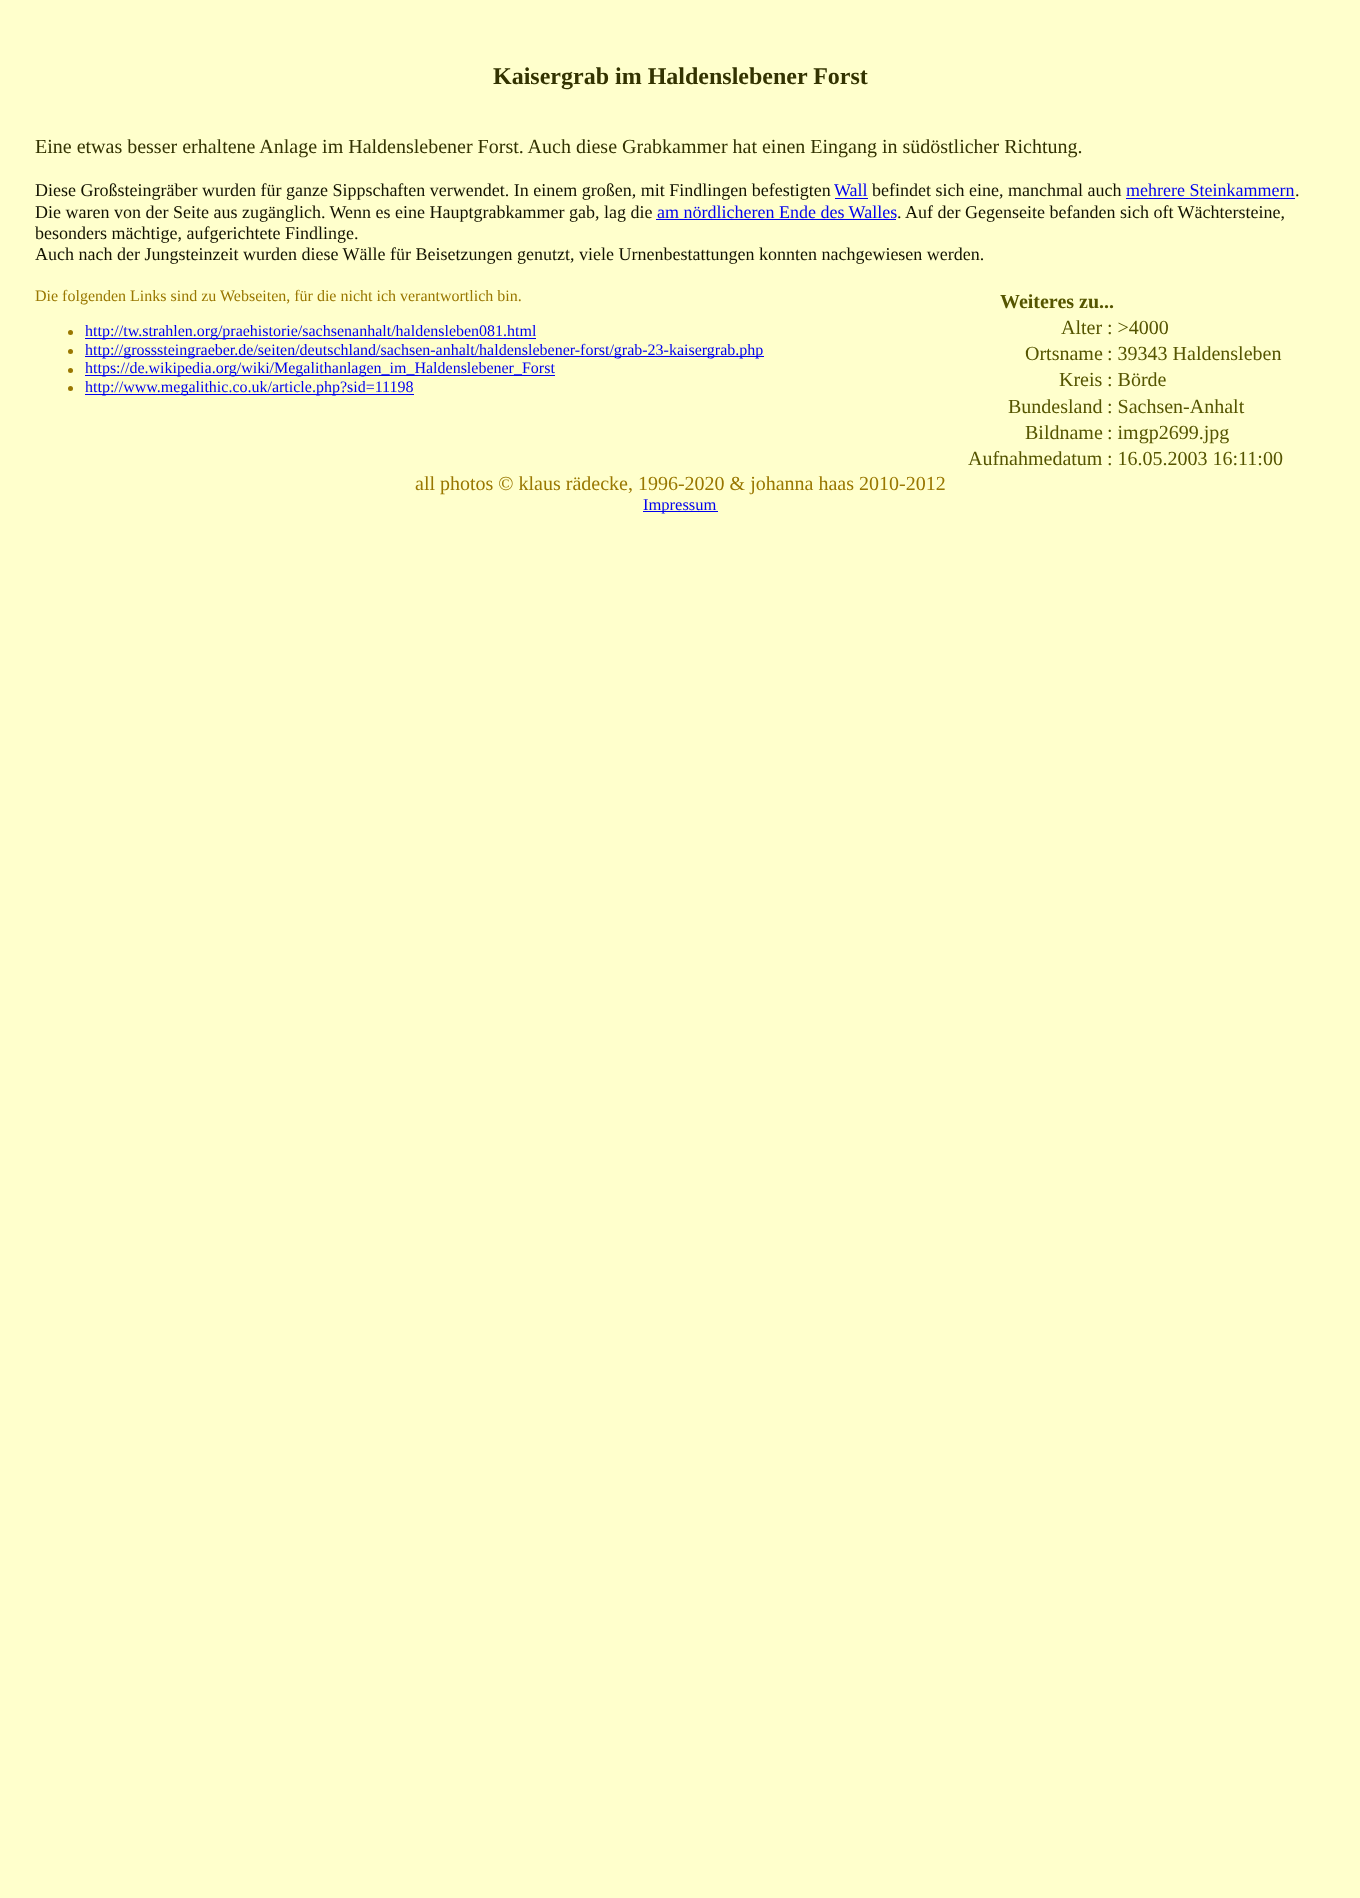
<!DOCTYPE html>
<meta charset="utf-8">
<style>body { margin: 0 } canvas { display: block }</style>
<canvas id="canvas" width="1360" height="1898"></canvas>
<script>
window.onload = function () {
    const canvas = document.getElementById('canvas');
    const context = canvas.getContext('2d');
    context.miterLimit = 4;
    context.fontKerning = 'normal';

    context.fillStyle = 'rgb(255, 255, 204)';
    context.fillRect(0, 0, 1360, 1898);
    context.fillStyle = 'rgb(0, 0, 238)';
    context.fillRect(835, 198, 33, 1);
    context.fillRect(1126, 198, 169, 1);
    context.fillRect(656, 219, 240, 1);
    context.fillStyle = 'rgb(153, 119, 0)';
    context.beginPath();
    context.arc(70.5, 332.5, 2.5, 0, 2 * Math.PI);
    context.fill();
    context.fillStyle = 'rgb(0, 0, 238)';
    context.fillRect(85, 338, 451, 1);
    context.fillStyle = 'rgb(153, 119, 0)';
    context.beginPath();
    context.arc(70.5, 351.5, 2.5, 0, 2 * Math.PI);
    context.fill();
    context.fillStyle = 'rgb(0, 0, 238)';
    context.fillRect(85, 356, 679, 1);
    context.fillStyle = 'rgb(153, 119, 0)';
    context.beginPath();
    context.arc(70.5, 370.5, 2.5, 0, 2 * Math.PI);
    context.fill();
    context.fillStyle = 'rgb(0, 0, 238)';
    context.fillRect(85, 375, 470, 1);
    context.fillStyle = 'rgb(153, 119, 0)';
    context.beginPath();
    context.arc(70.5, 388.5, 2.5, 0, 2 * Math.PI);
    context.fill();
    context.fillStyle = 'rgb(0, 0, 238)';
    context.fillRect(85, 394, 329, 1);
    context.fillRect(643, 511, 75, 1);
    context.font = 'bold 24px Liberation Serif';
    context.fillStyle = 'rgb(51, 51, 0)';
    context.fillText('Kaisergrab im Haldenslebener Forst', 493, 84);
    context.font = '20px Liberation Serif';
    context.fillText('Eine etwas besser erhaltene Anlage im Haldenslebener Forst. Auch diese Grabkammer hat einen Eingang in südöstlicher Richtung.', 35, 153);
    context.font = '18px Liberation Serif';
    context.fillStyle = 'rgb(18, 18, 0)';
    context.fillText('Diese Großsteingräber wurden für ganze Sippschaften verwendet. In einem großen, mit Findlingen befestigten', 35, 196);
    context.fillStyle = 'rgb(0, 0, 238)';
    context.fillText('Wall', 834, 196);
    context.fillStyle = 'rgb(18, 18, 0)';
    context.fillText('befindet sich eine, manchmal auch', 872, 196);
    context.fillStyle = 'rgb(0, 0, 238)';
    context.fillText('mehrere Steinkammern', 1126, 196);
    context.fillStyle = 'rgb(18, 18, 0)';
    context.fillText('.', 1295, 196);
    context.fillText('Die waren von der Seite aus zugänglich. Wenn es eine Hauptgrabkammer gab, lag die', 35, 218);
    context.fillStyle = 'rgb(0, 0, 238)';
    context.fillText('am nördlicheren Ende des Walles', 657, 218);
    context.fillStyle = 'rgb(18, 18, 0)';
    context.fillText('. Auf der Gegenseite befanden sich oft Wächtersteine,', 897, 218);
    context.fillText('besonders mächtige, aufgerichtete Findlinge.', 35, 239);
    context.fillText('Auch nach der Jungsteinzeit wurden diese Wälle für Beisetzungen genutzt, viele Urnenbestattungen konnten nachgewiesen werden.', 35, 260);
    context.font = '16px Liberation Serif';
    context.fillStyle = 'rgb(153, 119, 0)';
    context.fillText('Die folgenden Links sind zu Webseiten, für die nicht ich verantwortlich bin.', 35, 301);
    context.fillStyle = 'rgb(0, 0, 238)';
    context.fillText('http://tw.strahlen.org/praehistorie/sachsenanhalt/haldensleben081.html', 85, 336);
    context.fillText('http://grosssteingraeber.de/seiten/deutschland/sachsen-anhalt/haldenslebener-forst/grab-23-kaisergrab.php', 85, 355);
    context.fillText('https://de.wikipedia.org/wiki/Megalithanlagen_im_Haldenslebener_Forst', 85, 373);
    context.fillText('http://www.megalithic.co.uk/article.php?sid=11198', 85, 392);
    context.font = 'bold 20px Liberation Serif';
    context.fillStyle = 'rgb(85, 85, 0)';
    context.fillText('Weiteres zu...', 1000, 308);
    context.font = '20px Liberation Serif';
    context.fillText('Alter', 1061, 334);
    context.fillText(': >4000', 1107, 334);
    context.fillText('Ortsname', 1025, 360);
    context.fillText(': 39343 Haldensleben', 1107, 360);
    context.fillText('Kreis', 1059, 386);
    context.fillText(': Börde', 1107, 386);
    context.fillText('Bundesland', 1008, 413);
    context.fillText(': Sachsen-Anhalt', 1107, 413);
    context.fillText('Bildname', 1025, 439);
    context.fillText(': imgp2699.jpg', 1107, 439);
    context.fillText('Aufnahmedatum', 968, 465);
    context.fillText(': 16.05.2003 16:11:00', 1107, 465);
    context.fillStyle = 'rgb(153, 119, 0)';
    context.fillText('all photos © klaus rädecke, 1996-2020 & johanna haas 2010-2012', 415, 490);
    context.font = '16.5px Liberation Serif';
    context.fillStyle = 'rgb(0, 0, 238)';
    context.fillText('Impressum', 643, 510);
};
</script>
